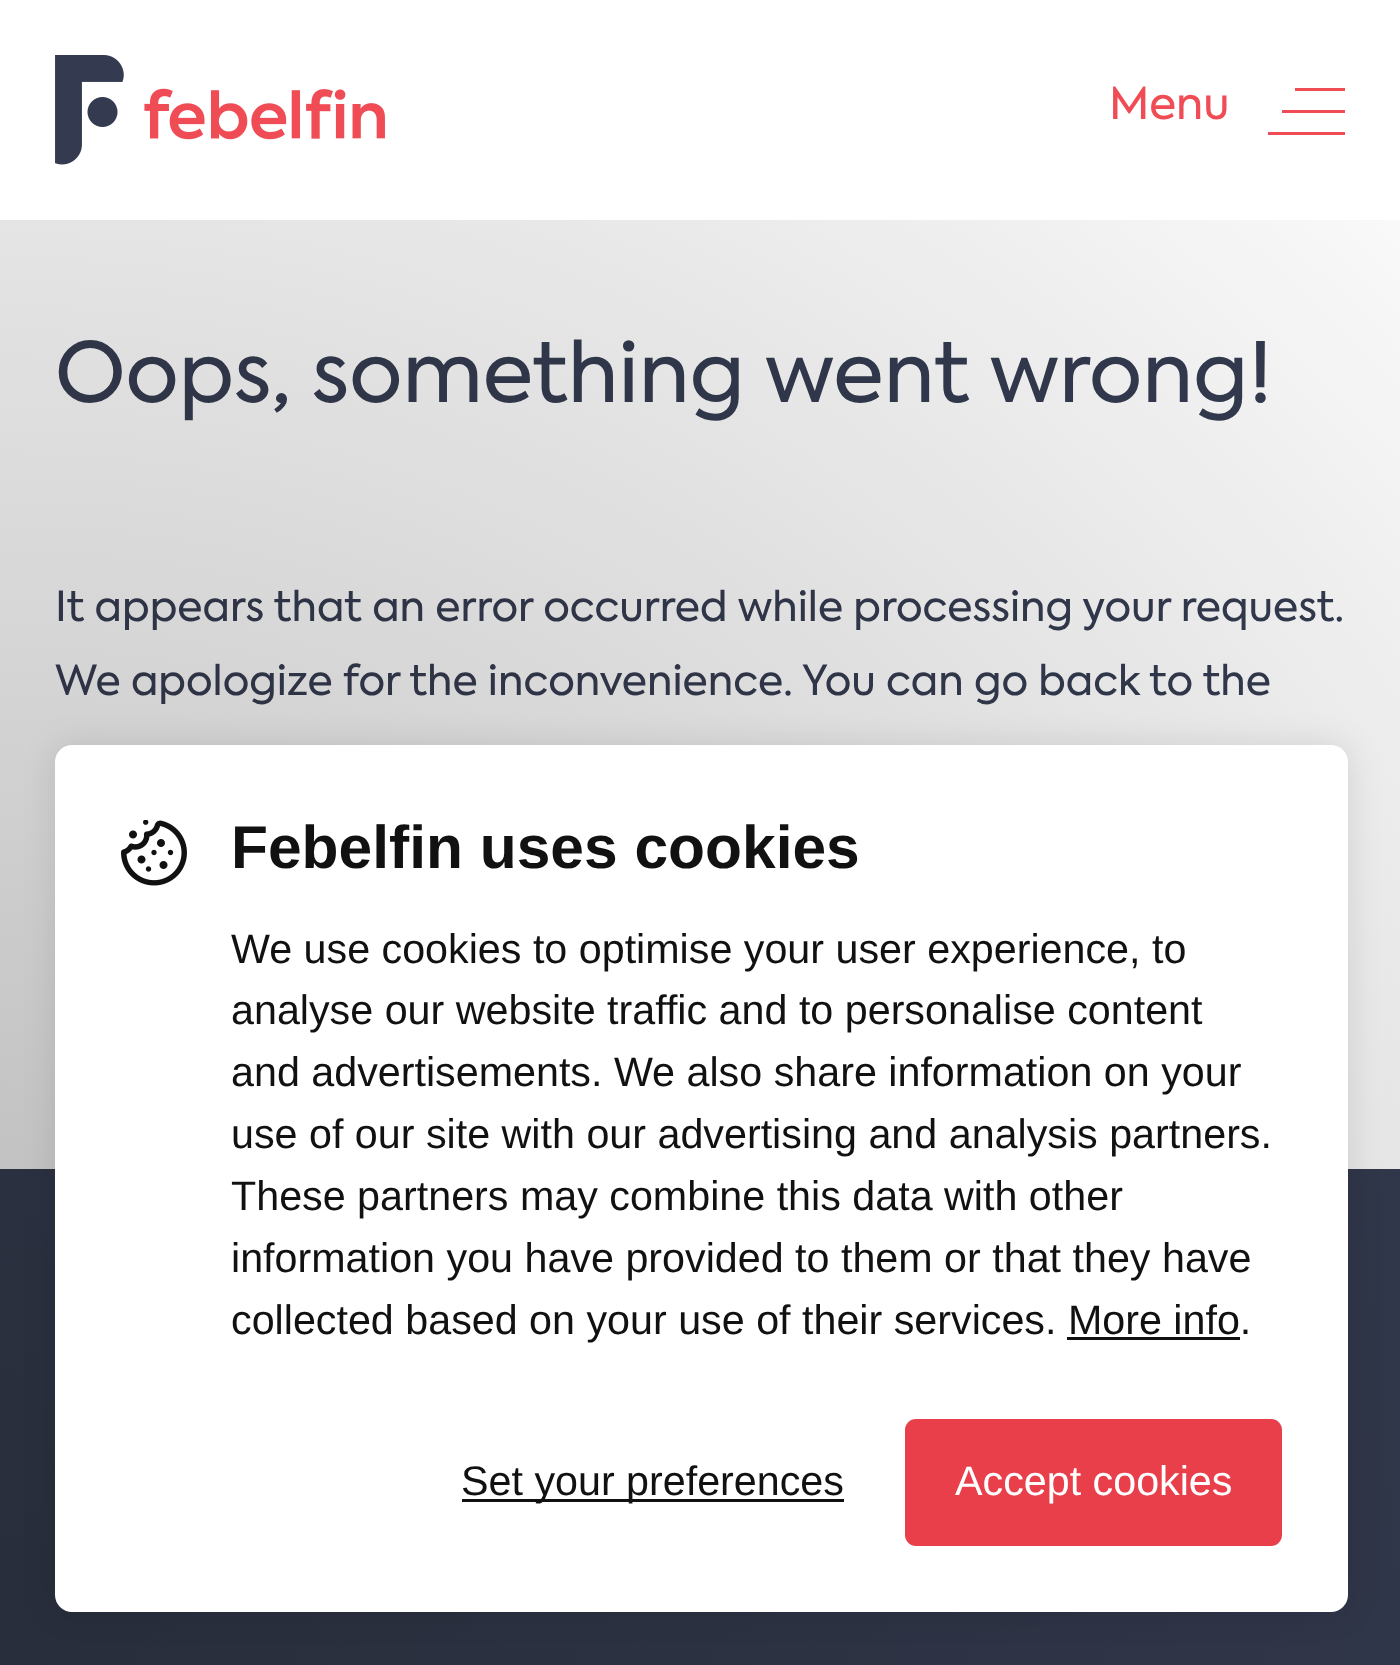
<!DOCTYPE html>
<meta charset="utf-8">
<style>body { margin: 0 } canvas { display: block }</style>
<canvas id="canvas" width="1400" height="1665"></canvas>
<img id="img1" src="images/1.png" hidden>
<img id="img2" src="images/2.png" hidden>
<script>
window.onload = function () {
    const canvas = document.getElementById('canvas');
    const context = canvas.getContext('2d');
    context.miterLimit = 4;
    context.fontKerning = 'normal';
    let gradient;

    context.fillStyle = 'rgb(255, 255, 255)';
    context.fillRect(0, 0, 1400, 1665);
    context.drawImage(document.getElementById('img1'), 55, 55, 330, 110);
    context.fillStyle = 'rgb(240, 76, 85)';
    context.fillRect(1282, 110, 63, 3);
    context.fillRect(1295, 88, 50, 3);
    context.fillRect(1268, 132, 77, 3);
    context.fillStyle = 'rgb(52, 59, 80)';
    context.fillRect(0, 1169, 1400, 496);
    context.font = '44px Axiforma';
    context.fillStyle = 'rgb(240, 76, 85)';
    context.fillText('Menu', 1109, 119);
    context.font = '82.5px Axiforma';
    context.fillStyle = 'rgb(52, 59, 80)';
    context.fillText('Oops, something went wrong!', 55, 402);
    context.font = '41.25px Axiforma';
    context.fillText('It appears that an error occurred while processing your request.', 55, 621);
    context.fillText('We apologize for the inconvenience. You can go back to the', 55, 695);
    gradient = context.createRadialGradient(0, 1667, 0, 0, 1667, 2178);
    gradient.addColorStop(0, 'rgba(17, 17, 17, 0.33)');
    gradient.addColorStop(1, 'rgba(17, 17, 17, 0)');
    context.fillStyle = gradient;
    context.fillRect(0, 220, 1400, 1445);
    context.fillStyle = 'rgba(0, 0, 0, 0.1)';
    context.filter = 'blur(16.5px)';
    context.beginPath();
    context.roundRect(55, 745, 1293, 867, 17);
    context.fill();
    context.filter = 'none';
    context.fillStyle = 'rgb(255, 255, 255)';
    context.beginPath();
    context.roundRect(55, 745, 1293, 867, 17);
    context.fill();
    context.drawImage(document.getElementById('img2'), 121, 820, 66, 66);
    context.font = 'bold 60.5px Liberation Sans';
    context.fillStyle = 'rgb(17, 17, 17)';
    context.fillText('Febelfin uses cookies', 231, 868);
    context.font = '41.25px Liberation Sans';
    context.fillText('We use cookies to optimise your user experience, to', 231, 963);
    context.fillText('analyse our website traffic and to personalise content', 231, 1024);
    context.fillText('and advertisements. We also share information on your', 231, 1086);
    context.fillText('use of our site with our advertising and analysis partners.', 231, 1148);
    context.fillText('These partners may combine this data with other', 231, 1210);
    context.fillText('information you have provided to them or that they have', 231, 1272);
    context.fillText('collected based on your use of their services. More info.', 231, 1334);
    context.fillRect(1067, 1337, 173, 3);
    context.fillRect(462, 1499, 382, 3);
    context.fillText('Set your preferences', 461, 1495);
    context.fillStyle = 'rgb(232, 63, 75)';
    context.beginPath();
    context.roundRect(905, 1419, 377, 127, 11);
    context.fill();
    context.fillStyle = 'rgb(255, 255, 255)';
    context.fillText('Accept cookies', 955, 1495);
};
</script>
